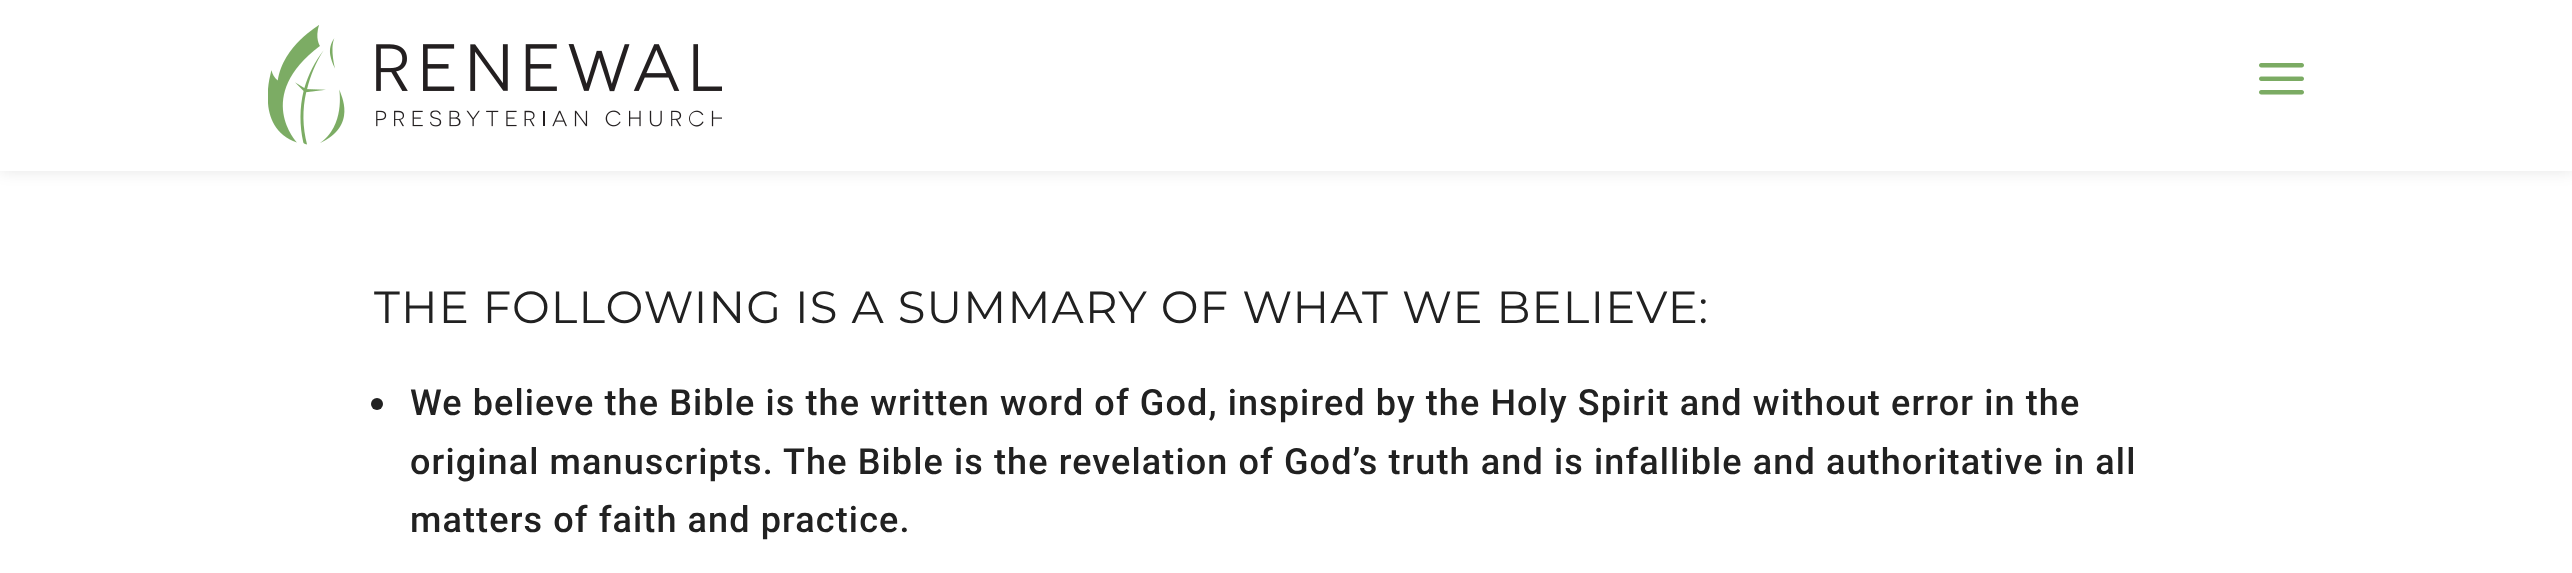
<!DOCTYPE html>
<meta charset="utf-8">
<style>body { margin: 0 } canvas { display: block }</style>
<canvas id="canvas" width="2572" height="573"></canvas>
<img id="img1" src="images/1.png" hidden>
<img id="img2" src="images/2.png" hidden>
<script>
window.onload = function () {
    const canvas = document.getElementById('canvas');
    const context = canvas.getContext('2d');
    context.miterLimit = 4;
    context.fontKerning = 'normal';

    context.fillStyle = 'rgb(255, 255, 255)';
    context.fillRect(0, 0, 2572, 573);
    context.fillStyle = 'rgba(0, 0, 0, 0.1)';
    context.filter = 'blur(8px)';
    context.beginPath();
    context.rect(0, 0, 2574, 171);
    context.fill();
    context.filter = 'none';
    context.fillStyle = 'rgb(255, 255, 255)';
    context.fillRect(0, 0, 2572, 171);
    context.drawImage(document.getElementById('img1'), 268, 25, 454, 120);
    context.drawImage(document.getElementById('img2'), 2259, 63, 45, 32);
    context.fillStyle = 'rgb(33, 33, 33)';
    context.beginPath();
    context.arc(377, 404, 6, 0, 2 * Math.PI);
    context.fill();
    context.letterSpacing = '1.12px';
    context.font = '100 45px Montserrat';
    context.fillText('THE FOLLOWING IS A SUMMARY OF WHAT WE BELIEVE:', 374, 323);
    context.font = '500 36px Roboto';
    context.fillText('We believe the Bible is the written word of God, inspired by the Holy Spirit and without error in the', 410, 415);
    context.fillText('original manuscripts. The Bible is the revelation of God’s truth and is infallible and authoritative in all', 410, 474);
    context.fillText('matters of faith and practice.', 410, 532);
};
</script>
